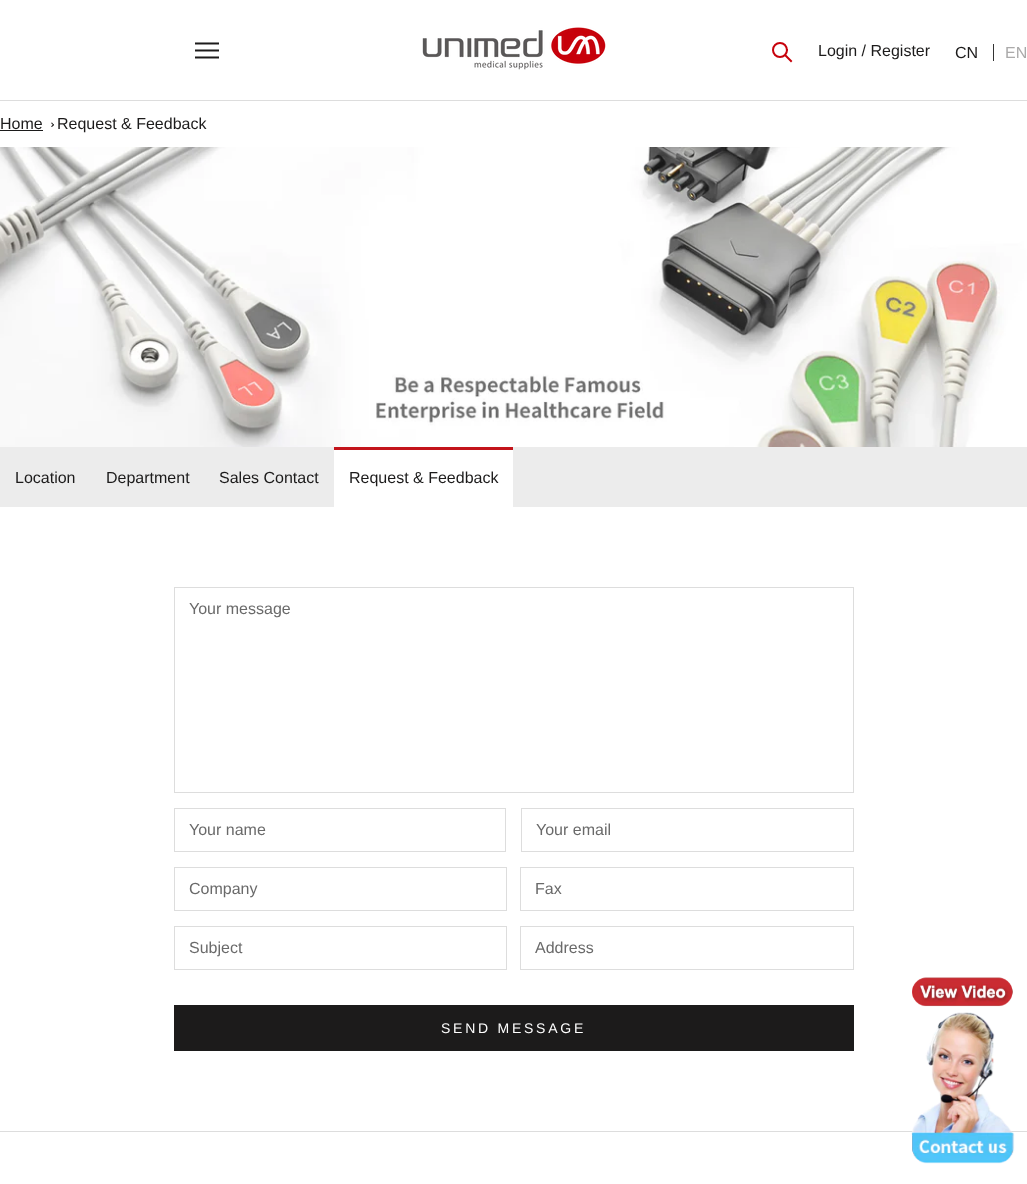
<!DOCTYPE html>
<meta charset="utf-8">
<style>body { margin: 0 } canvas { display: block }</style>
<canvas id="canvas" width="1027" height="1184"></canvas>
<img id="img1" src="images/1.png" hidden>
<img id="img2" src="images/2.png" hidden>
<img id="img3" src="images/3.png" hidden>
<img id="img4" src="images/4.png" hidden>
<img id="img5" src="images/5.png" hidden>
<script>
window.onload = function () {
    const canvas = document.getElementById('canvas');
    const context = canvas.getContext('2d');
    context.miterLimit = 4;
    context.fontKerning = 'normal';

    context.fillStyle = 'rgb(255, 255, 255)';
    context.fillRect(0, 0, 1027, 1184);
    context.fillStyle = 'rgb(221, 221, 221)';
    context.fillRect(0, 100, 1027, 1);
    context.drawImage(document.getElementById('img1'), 195, 42, 24, 17);
    context.drawImage(document.getElementById('img2'), 422, 27, 184, 43);
    context.beginPath();
    context.moveTo(791, 61);
    context.lineTo(785.5, 55.5);
    context.strokeStyle = 'rgb(199, 2, 11)';
    context.lineWidth = 2;
    context.lineCap = 'square';
    context.stroke();
    context.beginPath();
    context.arc(780, 50, 7, 0, 2 * Math.PI);
    context.stroke();
    context.fillStyle = 'rgb(51, 51, 51)';
    context.fillRect(993, 44, 1, 17);
    context.fillStyle = 'rgb(28, 27, 27)';
    context.fillRect(0, 130, 43, 1);
    context.beginPath();
    context.moveTo(52, 122.5);
    context.lineTo(54, 125);
    context.lineTo(53.5, 125.5);
    context.lineTo(51, 123);
    context.closePath();
    context.fill();
    context.beginPath();
    context.moveTo(53.5, 124);
    context.lineTo(54, 125);
    context.lineTo(52, 127);
    context.lineTo(51, 126.5);
    context.closePath();
    context.fill();
    context.drawImage(document.getElementById('img3'), 0, 147, 1027, 300);
    context.fillStyle = 'rgb(236, 236, 236)';
    context.fillRect(0, 447, 1027, 60);
    context.fillStyle = 'rgb(255, 255, 255)';
    context.fillRect(334, 450, 179, 57);
    context.fillStyle = 'rgb(195, 20, 27)';
    context.fillRect(334, 447, 179, 3);
    context.strokeStyle = 'rgb(221, 221, 221)';
    context.lineWidth = 1;
    context.strokeRect(174.5, 587.5, 679, 205);
    context.strokeRect(174.5, 808.5, 331, 43);
    context.strokeRect(521.5, 808.5, 332, 43);
    context.strokeRect(174.5, 867.5, 332, 43);
    context.strokeRect(520.5, 867.5, 333, 43);
    context.strokeRect(174.5, 926.5, 332, 43);
    context.strokeRect(520.5, 926.5, 333, 43);
    context.strokeStyle = 'rgb(28, 27, 27)';
    context.strokeRect(174.5, 1005.5, 679, 45);
    context.fillStyle = 'rgb(28, 27, 27)';
    context.fillRect(175, 1006, 678, 44);
    context.drawImage(document.getElementById('img4'), 912, 977, 101, 30);
    context.fillStyle = 'rgb(221, 221, 221)';
    context.fillRect(0, 1131, 1027, 1);
    context.drawImage(document.getElementById('img5'), 911, 1012, 104, 152);
    context.font = '16px Liberation Sans';
    context.fillStyle = 'rgb(28, 27, 27)';
    context.fillText('Login / Register', 818, 56);
    context.fillText('CN', 955, 58);
    context.fillStyle = 'rgb(171, 170, 170)';
    context.fillText('EN', 1005, 58);
    context.fillStyle = 'rgb(28, 27, 27)';
    context.fillText('Home', 0, 129);
    context.fillText('Request & Feedback', 57, 129);
    context.fillText('Location', 15, 483);
    context.fillText('Department', 106, 483);
    context.fillText('Sales Contact', 219, 483);
    context.fillText('Request & Feedback', 349, 483);
    context.fillStyle = 'rgb(106, 106, 106)';
    context.fillText('Your message', 189, 614);
    context.fillText('Your name', 189, 835);
    context.fillText('Your email', 536, 835);
    context.fillText('Company', 189, 894);
    context.fillText('Fax', 535, 894);
    context.fillText('Subject', 189, 953);
    context.fillText('Address', 535, 953);
    context.letterSpacing = '2.75px';
    context.font = '14px Liberation Sans';
    context.fillStyle = 'rgb(255, 255, 255)';
    context.fillText('SEND MESSAGE', 441, 1033);
};
</script>
